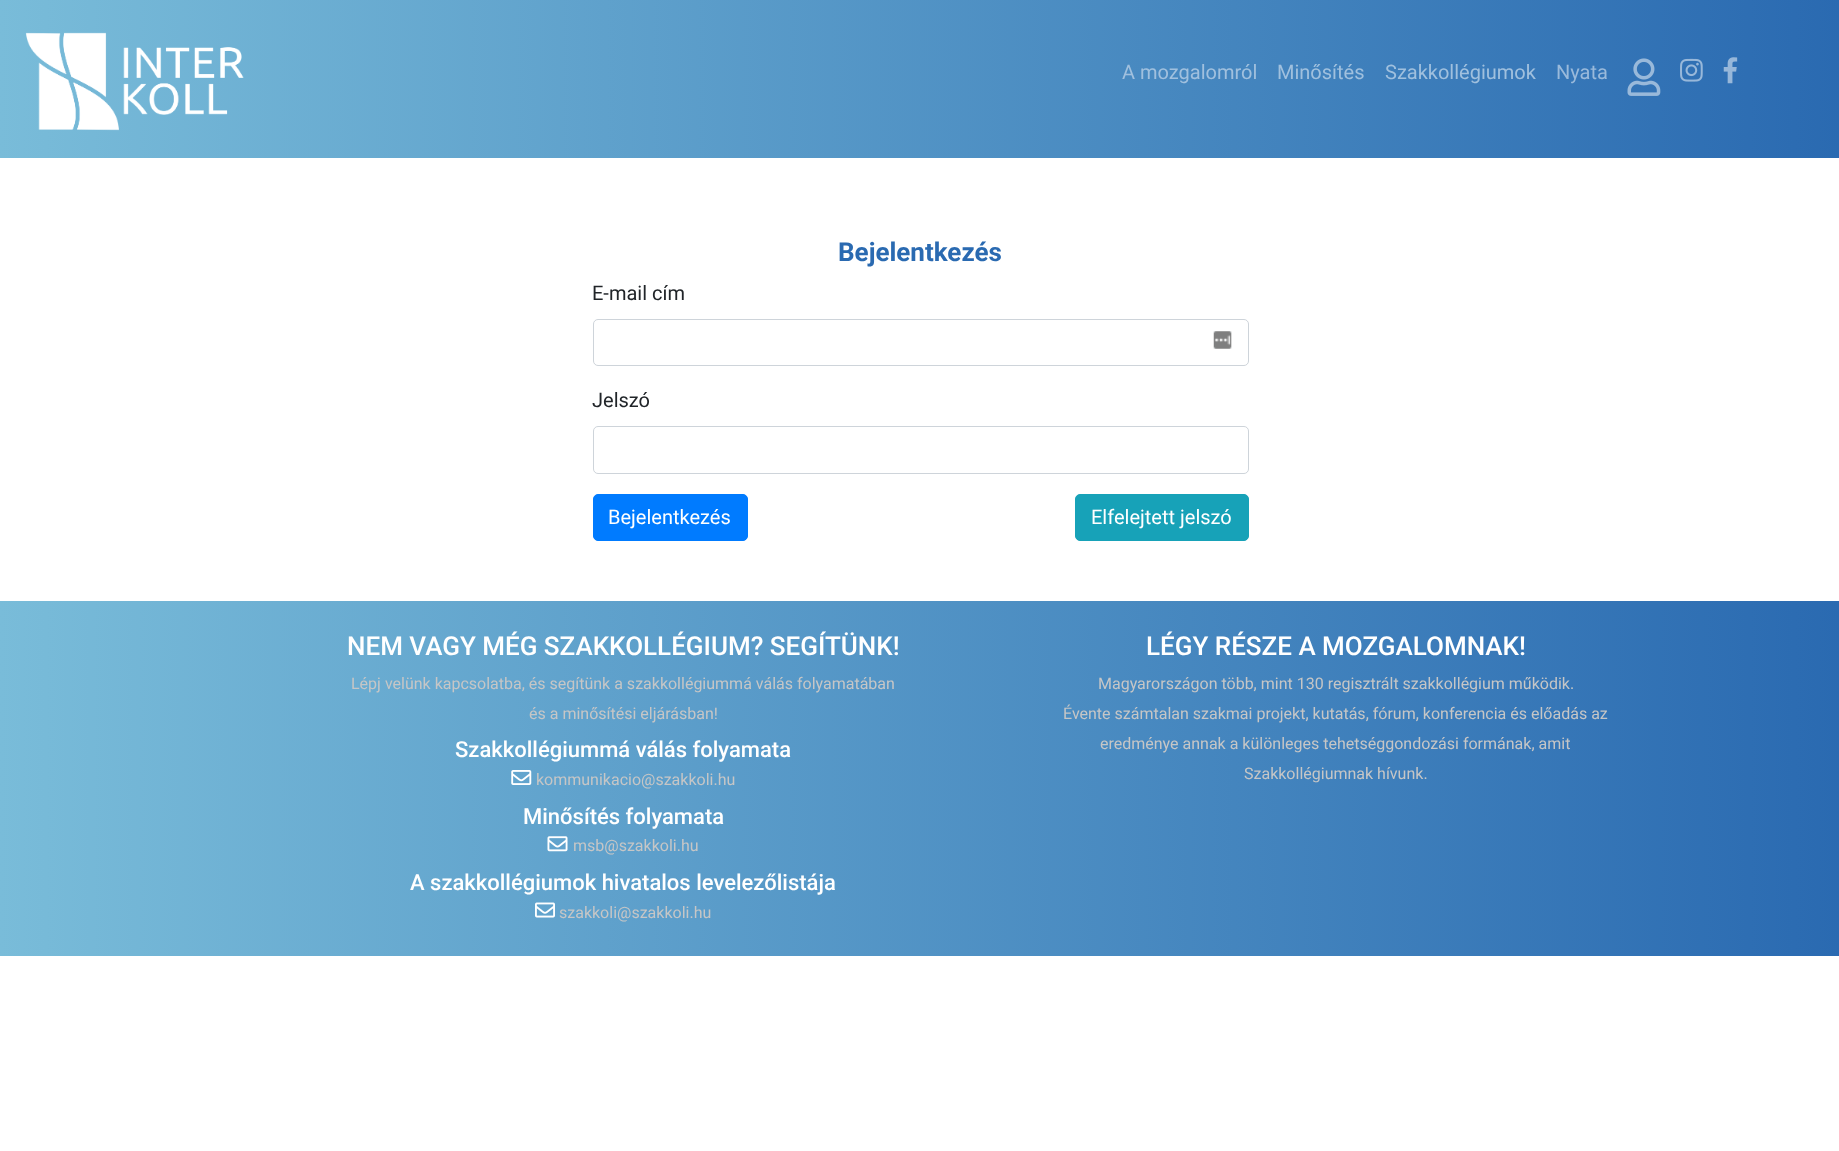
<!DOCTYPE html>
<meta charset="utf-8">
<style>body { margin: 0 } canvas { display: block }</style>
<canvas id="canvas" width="1839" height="1151"></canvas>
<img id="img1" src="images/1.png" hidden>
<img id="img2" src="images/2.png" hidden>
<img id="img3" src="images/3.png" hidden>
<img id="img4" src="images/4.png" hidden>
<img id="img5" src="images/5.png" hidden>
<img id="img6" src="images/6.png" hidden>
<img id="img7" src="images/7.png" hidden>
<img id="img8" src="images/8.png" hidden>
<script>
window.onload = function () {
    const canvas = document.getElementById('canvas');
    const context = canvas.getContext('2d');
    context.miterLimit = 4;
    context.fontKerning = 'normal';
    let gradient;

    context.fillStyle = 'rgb(255, 255, 255)';
    context.fillRect(0, 0, 1839, 1151);
    gradient = context.createLinearGradient(0, 79, 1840, 79);
    gradient.addColorStop(0, 'rgb(121, 188, 217)');
    gradient.addColorStop(1, 'rgb(42, 106, 177)');
    context.fillStyle = gradient;
    context.fillRect(0, 0, 1839, 158);
    context.drawImage(document.getElementById('img1'), 25, 32, 219, 99);
    context.drawImage(document.getElementById('img2'), 1627, 58, 34, 38);
    context.drawImage(document.getElementById('img3'), 1680, 58, 23, 24);
    context.drawImage(document.getElementById('img4'), 1723, 57, 15, 27);
    context.drawImage(document.getElementById('img5'), 1213, 331, 19, 18);
    context.beginPath();
    context.roundRect(593.5, 319.5, 655, 46, 4.5);
    context.strokeStyle = 'rgb(206, 212, 218)';
    context.stroke();
    context.beginPath();
    context.roundRect(593.5, 426.5, 655, 47, 4.5);
    context.stroke();
    context.fillStyle = 'rgb(0, 123, 255)';
    context.beginPath();
    context.roundRect(593.5, 494.5, 154, 46, 4.5);
    context.fill();
    context.strokeStyle = 'rgb(0, 123, 255)';
    context.stroke();
    context.fillStyle = 'rgb(23, 162, 184)';
    context.beginPath();
    context.roundRect(1075.5, 494.5, 173, 46, 4.5);
    context.fill();
    context.strokeStyle = 'rgb(23, 162, 184)';
    context.stroke();
    gradient = context.createLinearGradient(0, 779, 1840, 779);
    gradient.addColorStop(0, 'rgb(121, 188, 217)');
    gradient.addColorStop(1, 'rgb(42, 106, 177)');
    context.fillStyle = gradient;
    context.fillRect(0, 601, 1839, 355);
    context.drawImage(document.getElementById('img6'), 511, 770, 21, 15);
    context.drawImage(document.getElementById('img7'), 547, 836, 21, 16);
    context.drawImage(document.getElementById('img8'), 535, 902, 20, 16);
    context.font = '20px Roboto';
    context.fillStyle = 'rgb(160, 192, 222)';
    context.fillText('A mozgalomról', 1122, 79);
    context.fillText('Minősítés', 1277, 79);
    context.fillText('Szakkollégiumok', 1385, 79);
    context.fillStyle = 'rgb(154, 186, 219)';
    context.fillText('Nyata', 1556, 79);
    context.font = 'bold 26px Roboto';
    context.fillStyle = 'rgb(42, 106, 177)';
    context.fillText('Bejelentkezés', 838, 261);
    context.font = '20px Roboto';
    context.fillStyle = 'rgb(33, 37, 41)';
    context.fillText('E-mail cím', 592, 300);
    context.fillText('Jelszó', 592, 407);
    context.fillStyle = 'rgb(255, 255, 255)';
    context.fillText('Bejelentkezés', 608, 524);
    context.fillText('Elfelejtett jelszó', 1091, 524);
    context.font = '500 26px Roboto';
    context.fillText('NEM VAGY MÉG SZAKKOLLÉGIUM? SEGÍTÜNK!', 347, 655);
    context.font = '16px Roboto';
    context.fillStyle = 'rgb(198, 198, 198)';
    context.fillText('Lépj velünk kapcsolatba, és segítünk a szakkollégiummá válás folyamatában', 351, 689);
    context.fillText('és a minősítési eljárásban!', 529, 719);
    context.font = '500 22px Roboto';
    context.fillStyle = 'rgb(255, 255, 255)';
    context.fillText('Szakkollégiummá válás folyamata', 455, 757);
    context.font = '16px Roboto';
    context.fillStyle = 'rgb(198, 198, 198)';
    context.fillText('kommunikacio@szakkoli.hu', 536, 785);
    context.font = '500 22px Roboto';
    context.fillStyle = 'rgb(255, 255, 255)';
    context.fillText('Minősítés folyamata', 523, 824);
    context.font = '16px Roboto';
    context.fillStyle = 'rgb(198, 198, 198)';
    context.fillText('msb@szakkoli.hu', 573, 851);
    context.font = '500 22px Roboto';
    context.fillStyle = 'rgb(255, 255, 255)';
    context.fillText('A szakkollégiumok hivatalos levelezőlistája', 410, 890);
    context.font = '16px Roboto';
    context.fillStyle = 'rgb(198, 198, 198)';
    context.fillText('szakkoli@szakkoli.hu', 559, 918);
    context.font = '500 26px Roboto';
    context.fillStyle = 'rgb(255, 255, 255)';
    context.fillText('LÉGY RÉSZE A MOZGALOMNAK!', 1146, 655);
    context.font = '16px Roboto';
    context.fillStyle = 'rgb(198, 198, 198)';
    context.fillText('Magyarországon több, mint 130 regisztrált szakkollégium működik.', 1098, 689);
    context.fillText('Évente számtalan szakmai projekt, kutatás, fórum, konferencia és előadás az', 1063, 719);
    context.fillText('eredménye annak a különleges tehetséggondozási formának, amit', 1100, 749);
    context.fillText('Szakkollégiumnak hívunk.', 1244, 779);
};
</script>
